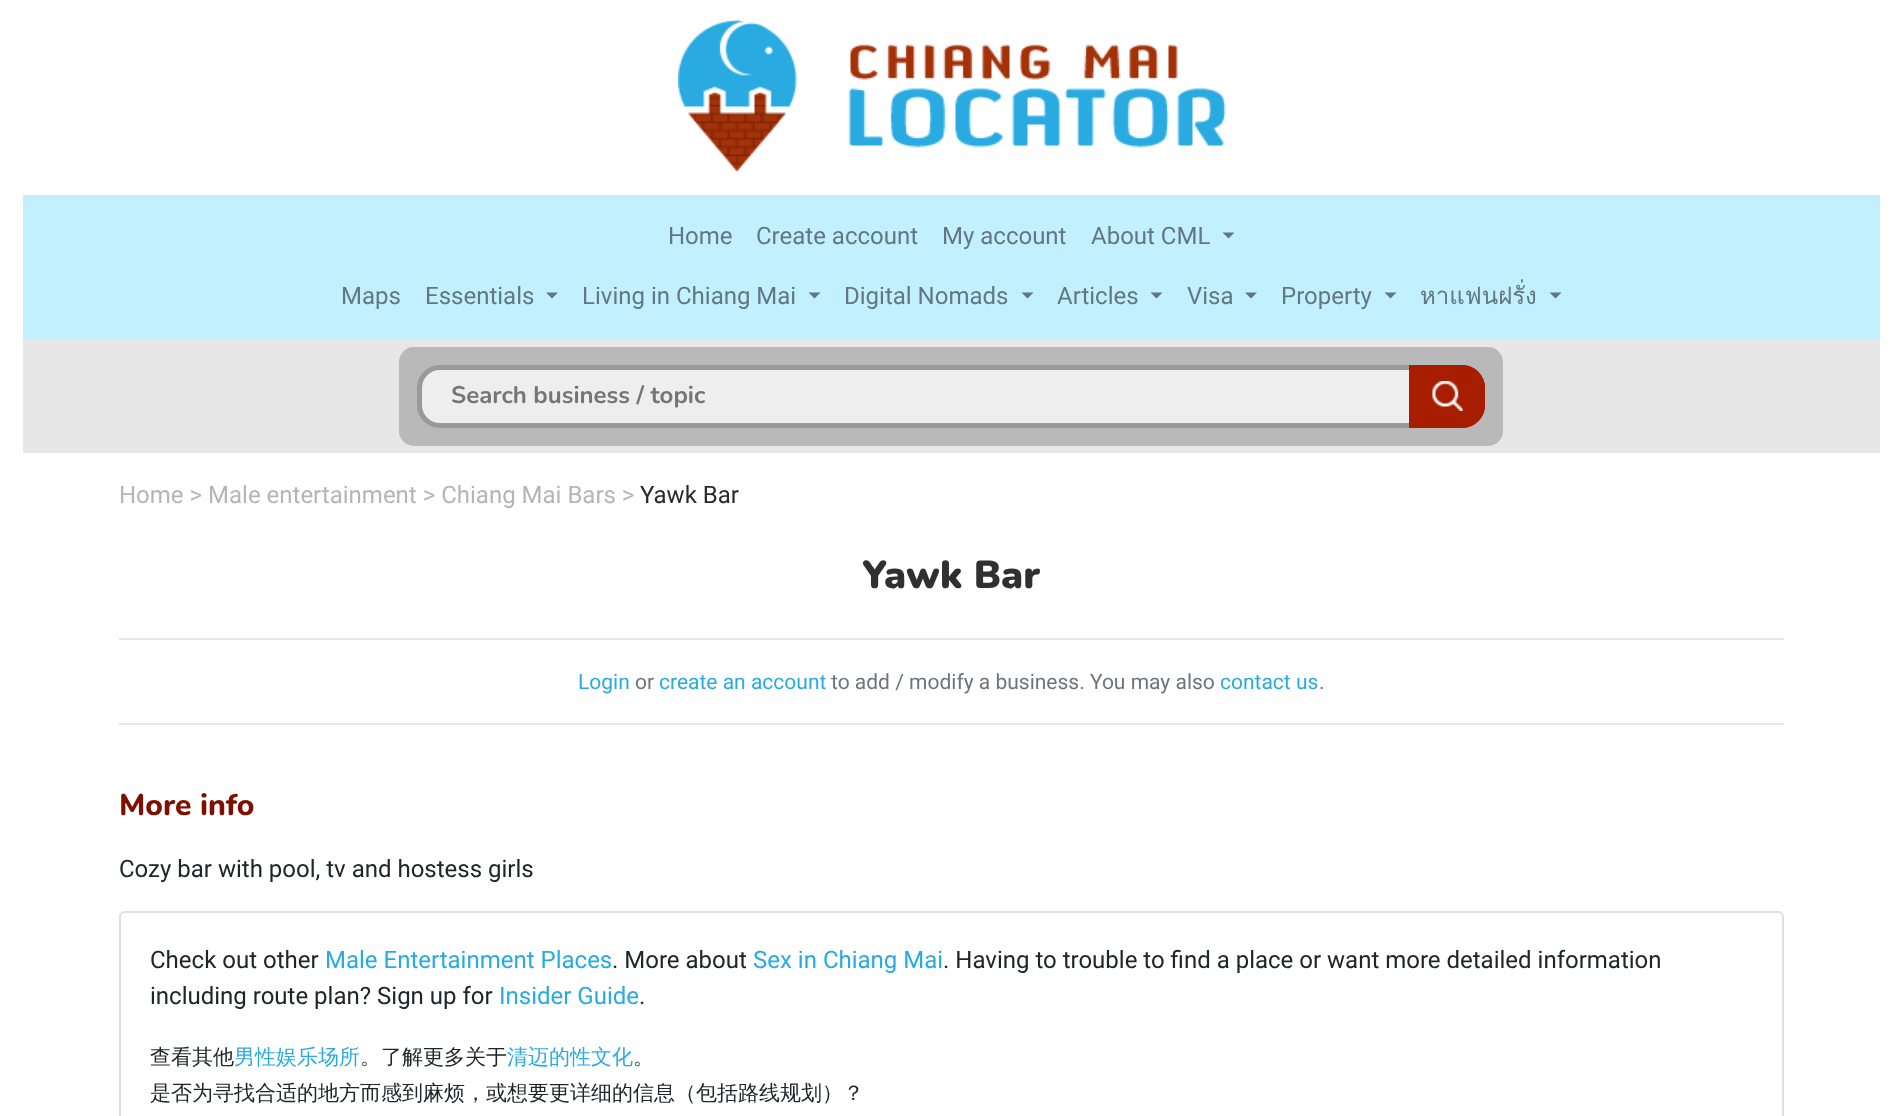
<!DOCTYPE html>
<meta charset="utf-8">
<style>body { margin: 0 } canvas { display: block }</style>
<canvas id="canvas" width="1902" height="1116"></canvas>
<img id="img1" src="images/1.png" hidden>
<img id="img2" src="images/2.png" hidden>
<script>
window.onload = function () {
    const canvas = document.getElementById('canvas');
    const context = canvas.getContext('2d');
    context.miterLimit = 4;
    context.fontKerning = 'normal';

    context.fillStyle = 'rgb(255, 255, 255)';
    context.fillRect(0, 0, 1902, 1116);
    context.drawImage(document.getElementById('img1'), 678, 19, 548, 152);
    context.fillStyle = 'rgb(195, 240, 255)';
    context.fillRect(23, 195, 1857, 144);
    context.fillStyle = 'rgb(98, 120, 128)';
    context.beginPath();
    context.moveTo(1222.5, 232.5);
    context.lineTo(1234.5, 232.5);
    context.lineTo(1228.5, 238.5);
    context.closePath();
    context.fill();
    context.beginPath();
    context.moveTo(546, 292.5);
    context.lineTo(558, 292.5);
    context.lineTo(552, 298.5);
    context.closePath();
    context.fill();
    context.beginPath();
    context.moveTo(808.5, 292.5);
    context.lineTo(820.5, 292.5);
    context.lineTo(814.5, 298.5);
    context.closePath();
    context.fill();
    context.beginPath();
    context.moveTo(1021.5, 292.5);
    context.lineTo(1033.5, 292.5);
    context.lineTo(1027.5, 298.5);
    context.closePath();
    context.fill();
    context.beginPath();
    context.moveTo(1150.5, 292.5);
    context.lineTo(1162.5, 292.5);
    context.lineTo(1156.5, 298.5);
    context.closePath();
    context.fill();
    context.beginPath();
    context.moveTo(1245, 292.5);
    context.lineTo(1257, 292.5);
    context.lineTo(1251, 298.5);
    context.closePath();
    context.fill();
    context.beginPath();
    context.moveTo(1384.5, 292.5);
    context.lineTo(1396.5, 292.5);
    context.lineTo(1390.5, 298.5);
    context.closePath();
    context.fill();
    context.beginPath();
    context.moveTo(1549.5, 292.5);
    context.lineTo(1561.5, 292.5);
    context.lineTo(1555.5, 298.5);
    context.closePath();
    context.fill();
    context.fillStyle = 'rgb(231, 231, 231)';
    context.fillRect(23, 339, 1857, 114);
    context.fillStyle = 'rgb(185, 185, 185)';
    context.beginPath();
    context.roundRect(399, 347, 1104, 99, 15);
    context.fill();
    context.fillStyle = 'rgb(238, 238, 238)';
    context.beginPath();
    context.roundRect(419.5, 367.5, 1063, 58, 20.5);
    context.fill();
    context.strokeStyle = 'rgb(153, 153, 153)';
    context.lineWidth = 5;
    context.stroke();
    context.fillStyle = 'rgb(167, 29, 0)';
    context.beginPath();
    context.roundRect(1409, 365, 76, 63, [0, 23, 23, 0]);
    context.fill();
    context.drawImage(document.getElementById('img2'), 1432, 381, 31, 30);
    context.beginPath();
    context.roundRect(1410, 366, 74, 61, [0, 22, 22, 0]);
    context.strokeStyle = 'rgb(167, 29, 0)';
    context.lineWidth = 2;
    context.stroke();
    context.fillStyle = 'rgb(230, 230, 230)';
    context.fillRect(119, 638, 1665, 2);
    context.fillRect(119, 723, 1665, 2);
    context.beginPath();
    context.roundRect(120, 912, 1663, 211, 5);
    context.strokeStyle = 'rgb(223, 223, 223)';
    context.stroke();
    context.font = '24px Roboto';
    context.fillStyle = 'rgb(98, 120, 128)';
    context.fillText('Home', 668, 244);
    context.fillText('Create account', 756, 244);
    context.fillText('My account', 942, 244);
    context.fillText('About CML', 1091, 244);
    context.fillText('Maps', 341, 304);
    context.fillText('Essentials', 425, 304);
    context.fillText('Living in Chiang Mai', 582, 304);
    context.fillText('Digital Nomads', 844, 304);
    context.fillText('Articles', 1057, 304);
    context.fillText('Visa', 1187, 304);
    context.fillText('Property', 1281, 304);
    context.font = '24px Loma';
    context.fillText('หาแฟนฝรั่ง', 1420, 304);
    context.font = 'bold 24px Nunito';
    context.fillStyle = 'rgb(117, 117, 117)';
    context.fillText('Search business / topic', 451, 403);
    context.font = '24px Roboto';
    context.fillStyle = 'rgb(181, 181, 181)';
    context.fillText('Home > Male entertainment > Chiang Mai Bars >', 119, 503);
    context.fillStyle = 'rgb(41, 42, 47)';
    context.fillText('Yawk Bar', 640, 503);
    context.font = '900 39px Nunito';
    context.fillStyle = 'rgb(48, 48, 48)';
    context.fillText('Yawk Bar', 862, 588);
    context.font = '21px Roboto';
    context.fillStyle = 'rgb(41, 171, 226)';
    context.fillText('Login', 578, 689);
    context.fillStyle = 'rgb(108, 117, 125)';
    context.fillText('or', 635, 689);
    context.fillStyle = 'rgb(41, 171, 226)';
    context.fillText('create an account', 659, 689);
    context.fillStyle = 'rgb(108, 117, 125)';
    context.fillText('to add / modify a business. You may also', 831, 689);
    context.fillStyle = 'rgb(41, 171, 226)';
    context.fillText('contact us', 1220, 689);
    context.fillStyle = 'rgb(108, 117, 125)';
    context.fillText('.', 1319, 689);
    context.font = '800 30px Nunito';
    context.fillStyle = 'rgb(125, 16, 0)';
    context.fillText('More info', 119, 815);
    context.font = '24px Roboto';
    context.fillStyle = 'rgb(33, 37, 41)';
    context.fillText('Cozy bar with pool, tv and hostess girls', 119, 877);
    context.fillText('Check out other', 150, 968);
    context.fillStyle = 'rgb(41, 171, 226)';
    context.fillText('Male Entertainment Places', 325, 968);
    context.fillStyle = 'rgb(33, 37, 41)';
    context.fillText('. More about', 612, 968);
    context.fillStyle = 'rgb(41, 171, 226)';
    context.fillText('Sex in Chiang Mai', 753, 968);
    context.fillStyle = 'rgb(33, 37, 41)';
    context.fillText('. Having to trouble to find a place or want more detailed information', 943, 968);
    context.fillText('including route plan? Sign up for', 150, 1004);
    context.fillStyle = 'rgb(41, 171, 226)';
    context.fillText('Insider Guide', 499, 1004);
    context.fillStyle = 'rgb(33, 37, 41)';
    context.fillText('.', 639, 1004);
    context.font = '500 21px WenQuanYi Zen Hei';
    context.fillText('查看其他', 150, 1064);
    context.fillStyle = 'rgb(41, 171, 226)';
    context.fillText('男性娱乐场所', 234, 1064);
    context.fillStyle = 'rgb(33, 37, 41)';
    context.fillText('。了解更多关于', 360, 1064);
    context.fillStyle = 'rgb(41, 171, 226)';
    context.fillText('清迈的性文化', 507, 1064);
    context.fillStyle = 'rgb(33, 37, 41)';
    context.fillText('。', 633, 1064);
    context.fillText('是否为寻找合适的地方而感到麻烦，或想要更详细的信息（包括路线规划）？', 150, 1100);
};
</script>
